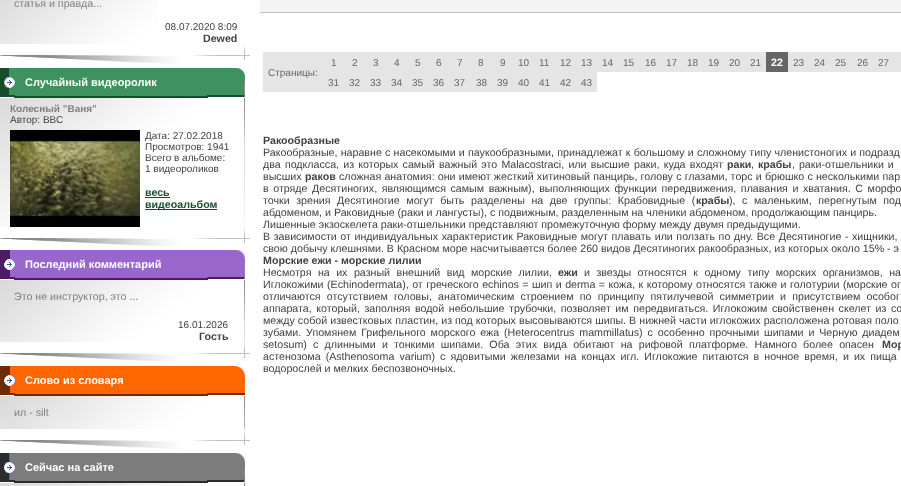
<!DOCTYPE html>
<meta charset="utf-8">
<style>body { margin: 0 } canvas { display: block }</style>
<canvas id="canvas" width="901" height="486"></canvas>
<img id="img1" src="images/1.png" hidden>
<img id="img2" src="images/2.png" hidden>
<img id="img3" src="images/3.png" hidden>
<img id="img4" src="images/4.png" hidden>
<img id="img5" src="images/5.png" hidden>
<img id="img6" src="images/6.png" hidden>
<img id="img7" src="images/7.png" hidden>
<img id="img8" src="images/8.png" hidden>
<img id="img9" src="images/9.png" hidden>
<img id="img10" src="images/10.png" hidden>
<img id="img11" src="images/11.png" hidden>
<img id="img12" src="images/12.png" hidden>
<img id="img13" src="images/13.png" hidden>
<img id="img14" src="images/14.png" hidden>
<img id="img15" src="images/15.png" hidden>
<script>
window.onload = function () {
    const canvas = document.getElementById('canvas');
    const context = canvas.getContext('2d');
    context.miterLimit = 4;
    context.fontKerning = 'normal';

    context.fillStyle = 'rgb(255, 255, 255)';
    context.fillRect(0, 0, 901, 486);
    context.drawImage(document.getElementById('img1'), 0, 0, 158, 44);
    context.drawImage(document.getElementById('img2'), 0, 44, 250, 20);
    context.fillStyle = 'rgb(61, 146, 95)';
    context.fillRect(15, 68, 192, 28);
    context.fillStyle = 'rgb(23, 77, 45)';
    context.fillRect(14, 96, 194, 2);
    context.drawImage(document.getElementById('img3'), 0, 68, 15, 29);
    context.drawImage(document.getElementById('img4'), 207, 68, 43, 29);
    context.drawImage(document.getElementById('img5'), 0, 98, 245, 129);
    context.drawImage(document.getElementById('img6'), 10, 130, 130, 97);
    context.fillRect(145, 197, 25, 1);
    context.fillRect(145, 209, 72, 1);
    context.drawImage(document.getElementById('img2'), 0, 227, 250, 20);
    context.fillStyle = 'rgb(153, 102, 204)';
    context.fillRect(15, 250, 192, 28);
    context.fillStyle = 'rgb(79, 27, 103)';
    context.fillRect(14, 278, 194, 2);
    context.drawImage(document.getElementById('img7'), 0, 250, 15, 29);
    context.drawImage(document.getElementById('img8'), 207, 250, 43, 29);
    context.drawImage(document.getElementById('img9'), 0, 280, 245, 62);
    context.drawImage(document.getElementById('img2'), 0, 342, 250, 20);
    context.fillStyle = 'rgb(255, 102, 0)';
    context.fillRect(15, 366, 192, 28);
    context.fillStyle = 'rgb(109, 45, 2)';
    context.fillRect(14, 394, 194, 2);
    context.drawImage(document.getElementById('img10'), 0, 366, 15, 29);
    context.drawImage(document.getElementById('img11'), 207, 366, 38, 29);
    context.drawImage(document.getElementById('img12'), 0, 396, 245, 33);
    context.drawImage(document.getElementById('img2'), 0, 429, 250, 20);
    context.fillStyle = 'rgb(124, 124, 124)';
    context.fillRect(15, 453, 192, 28);
    context.fillStyle = 'rgb(44, 44, 44)';
    context.fillRect(14, 481, 194, 2);
    context.drawImage(document.getElementById('img13'), 0, 453, 15, 29);
    context.drawImage(document.getElementById('img14'), 207, 453, 43, 29);
    context.drawImage(document.getElementById('img15'), 0, 483, 245, 3);
    context.fillStyle = 'rgb(244, 244, 244)';
    context.fillRect(260, 0, 641, 12);
    context.fillStyle = 'rgb(192, 192, 192)';
    context.fillRect(260, 12, 641, 1);
    context.fillStyle = 'rgb(229, 229, 229)';
    context.fillRect(263, 52, 638, 40);
    context.fillStyle = 'rgb(102, 102, 102)';
    context.fillRect(766, 52, 22, 20);
    context.fillStyle = 'rgb(255, 255, 255)';
    context.fillRect(597, 72, 304, 20);
    context.font = '10.67px Liberation Sans';
    context.fillStyle = 'rgb(128, 128, 128)';
    context.fillText('статья и правда...', 14, 7);
    context.font = '10px Liberation Sans';
    context.fillStyle = 'rgb(65, 65, 65)';
    context.fillText('08.07.2020 8:09', 165, 30);
    context.font = 'bold 10.67px Liberation Sans';
    context.fillText('Dewed', 203, 42);
    context.font = 'bold 11px Liberation Sans';
    context.fillStyle = 'rgb(255, 255, 255)';
    context.fillText('Случайный видеоролик', 25, 86);
    context.font = 'bold 10px Liberation Sans';
    context.fillStyle = 'rgb(128, 128, 128)';
    context.fillText('Колесный "Ваня"', 10, 112);
    context.font = '10px Liberation Sans';
    context.fillStyle = 'rgb(65, 65, 65)';
    context.fillText('Автор: ВВС', 10, 123);
    context.fillText('Дата: 27.02.2018', 145, 139);
    context.fillText('Просмотров: 1941', 145, 150);
    context.fillText('Всего в альбоме:', 145, 161);
    context.fillText('1 видеороликов', 145, 172);
    context.font = 'bold 10.67px Liberation Sans';
    context.fillStyle = 'rgb(23, 77, 45)';
    context.fillText('весь', 145, 196);
    context.fillText('видеоальбом', 145, 208);
    context.font = 'bold 11px Liberation Sans';
    context.fillStyle = 'rgb(255, 255, 255)';
    context.fillText('Последний комментарий', 25, 268);
    context.font = '10.67px Liberation Sans';
    context.fillStyle = 'rgb(128, 128, 128)';
    context.fillText('Это не инструктор, это ...', 14, 300);
    context.font = '10px Liberation Sans';
    context.fillStyle = 'rgb(65, 65, 65)';
    context.fillText('16.01.2026', 178, 328);
    context.font = 'bold 10.67px Liberation Sans';
    context.fillText('Гость', 199, 340);
    context.font = 'bold 11px Liberation Sans';
    context.fillStyle = 'rgb(255, 255, 255)';
    context.fillText('Слово из словаря', 25, 384);
    context.font = '10.67px Liberation Sans';
    context.fillStyle = 'rgb(128, 128, 128)';
    context.fillText('ил - silt', 14, 416);
    context.font = 'bold 11px Liberation Sans';
    context.fillStyle = 'rgb(255, 255, 255)';
    context.fillText('Сейчас на сайте', 25, 471);
    context.font = '10px Liberation Sans';
    context.fillStyle = 'rgb(102, 102, 102)';
    context.fillText('Страницы:', 268, 76);
    context.fillText('1', 331, 66);
    context.fillText('2', 352, 66);
    context.fillText('3', 373, 66);
    context.fillText('4', 394, 66);
    context.fillText('5', 415, 66);
    context.fillText('6', 436, 66);
    context.fillText('7', 457, 66);
    context.fillText('8', 478, 66);
    context.fillText('9', 500, 66);
    context.fillText('10', 518, 66);
    context.fillText('11', 539, 66);
    context.fillText('12', 560, 66);
    context.fillText('13', 581, 66);
    context.fillText('14', 602, 66);
    context.fillText('15', 623, 66);
    context.fillText('16', 645, 66);
    context.fillText('17', 666, 66);
    context.fillText('18', 687, 66);
    context.fillText('19', 708, 66);
    context.fillText('20', 729, 66);
    context.fillText('21', 750, 66);
    context.font = 'bold 10.67px Liberation Sans';
    context.fillStyle = 'rgb(255, 255, 255)';
    context.fillText('22', 771, 66);
    context.font = '10px Liberation Sans';
    context.fillStyle = 'rgb(102, 102, 102)';
    context.fillText('23', 793, 66);
    context.fillText('24', 814, 66);
    context.fillText('25', 835, 66);
    context.fillText('26', 857, 66);
    context.fillText('27', 878, 66);
    context.fillText('31', 328, 86);
    context.fillText('32', 349, 86);
    context.fillText('33', 370, 86);
    context.fillText('34', 391, 86);
    context.fillText('35', 412, 86);
    context.fillText('36', 433, 86);
    context.fillText('37', 454, 86);
    context.fillText('38', 476, 86);
    context.fillText('39', 497, 86);
    context.fillText('40', 518, 86);
    context.fillText('41', 539, 86);
    context.fillText('42', 560, 86);
    context.fillText('43', 581, 86);
    context.font = 'bold 10.67px Liberation Sans';
    context.fillStyle = 'rgb(65, 65, 65)';
    context.fillText('Ракообразные', 263, 144);
    context.wordSpacing = '0.25px';
    context.font = '10.67px Liberation Sans';
    context.fillText('Ракообразные, наравне с насекомыми и паукообразными, принадлежат к большому и сложному типу членистоногих и подразд', 263, 156);
    context.wordSpacing = '1.25px';
    context.fillText('два подкласса, из которых самый важный это Malacostraci, или высшие раки, куда входят', 263, 168);
    context.wordSpacing = '0px';
    context.font = 'bold 10.67px Liberation Sans';
    context.fillText('раки', 727, 168);
    context.font = '10.67px Liberation Sans';
    context.fillText(',', 751, 168);
    context.font = 'bold 10.67px Liberation Sans';
    context.fillText('крабы', 758, 168);
    context.wordSpacing = '1px';
    context.font = '10.67px Liberation Sans';
    context.fillText(', раки-отшельники и', 792, 168);
    context.wordSpacing = '0px';
    context.fillText('высших', 263, 180);
    context.font = 'bold 10.67px Liberation Sans';
    context.fillText('раков', 305, 180);
    context.wordSpacing = '0.25px';
    context.font = '10.67px Liberation Sans';
    context.fillText('сложная анатомия: они имеют жесткий хитиновый панцирь, голову с глазами, торс и брюшко с несколькими пар', 339, 180);
    context.wordSpacing = '1.6px';
    context.fillText('в отряде Десятиногих, являющимся самым важным), выполняющих функции передвижения, плавания и хватания. С морфо', 263, 192);
    context.wordSpacing = '3.6px';
    context.fillText('точки зрения Десятиногие могут быть разделены на две группы: Крабовидные (', 263, 204);
    context.wordSpacing = '0px';
    context.font = 'bold 10.67px Liberation Sans';
    context.fillText('крабы', 696, 204);
    context.wordSpacing = '3.6px';
    context.font = '10.67px Liberation Sans';
    context.fillText('), с маленьким, перегнутым под', 729, 204);
    context.wordSpacing = '0px';
    context.fillText('абдоменом, и Раковидные (раки и лангусты), с подвижным, разделенным на членики абдоменом, продолжающим панцирь.', 263, 216);
    context.fillText('Лишенные экзоскелета раки-отшельники представляют промежуточную форму между двумя предыдущими.', 263, 228);
    context.wordSpacing = '0.6px';
    context.fillText('В зависимости от индивидуальных характеристик Раковидные могут плавать или ползать по дну. Все Десятиногие - хищники,', 263, 240);
    context.wordSpacing = '0px';
    context.fillText('свою добычу клешнями. В Красном море насчитывается более 260 видов Десятиногих ракообразных, из которых около 15% - э', 263, 252);
    context.font = 'bold 10.67px Liberation Sans';
    context.fillText('Морские ежи - морские лилии', 263, 264);
    context.wordSpacing = '3.5px';
    context.font = '10.67px Liberation Sans';
    context.fillText('Несмотря на их разный внешний вид морские лилии,', 263, 276);
    context.wordSpacing = '0px';
    context.font = 'bold 10.67px Liberation Sans';
    context.fillText('ежи', 558, 276);
    context.wordSpacing = '3.5px';
    context.font = '10.67px Liberation Sans';
    context.fillText('и звезды относятся к одному типу морских организмов, на', 584, 276);
    context.wordSpacing = '0.5px';
    context.fillText('Иглокожими (Echinodermata), от греческого echinos = шип и derma = кожа, к которому относятся также и голотурии (морские ог', 263, 288);
    context.wordSpacing = '3.25px';
    context.fillText('отличаются отсутствием головы, анатомическим строением по принципу пятилучевой симметрии и присутствием особог', 263, 300);
    context.wordSpacing = '1.6px';
    context.fillText('аппарата, который, заполняя водой небольшие трубочки, позволяет им передвигаться. Иглокожим свойственен скелет из со', 263, 312);
    context.wordSpacing = '0.1px';
    context.fillText('между собой известковых пластин, из под которых высовываются шипы. В нижней части иглокожих расположена ротовая поло', 263, 324);
    context.wordSpacing = '1.9px';
    context.fillText('зубами. Упомянем Грифельного морского ежа (Heterocentrus mammillatus) с особенно прочными шипами и Черную диадем', 263, 336);
    context.wordSpacing = '3.25px';
    context.fillText('setosum) с длинными и тонкими шипами. Оба этих вида обитают на рифовой платформе. Намного более опасен', 263, 348);
    context.font = 'bold 10.67px Liberation Sans';
    context.fillText('Мор', 882, 348);
    context.wordSpacing = '2.1px';
    context.font = '10.67px Liberation Sans';
    context.fillText('астенозома (Asthenosoma varium) с ядовитыми железами на концах игл. Иглокожие питаются в ночное время, и их пища', 263, 360);
    context.wordSpacing = '0px';
    context.fillText('водорослей и мелких беспозвоночных.', 263, 372);
};
</script>
